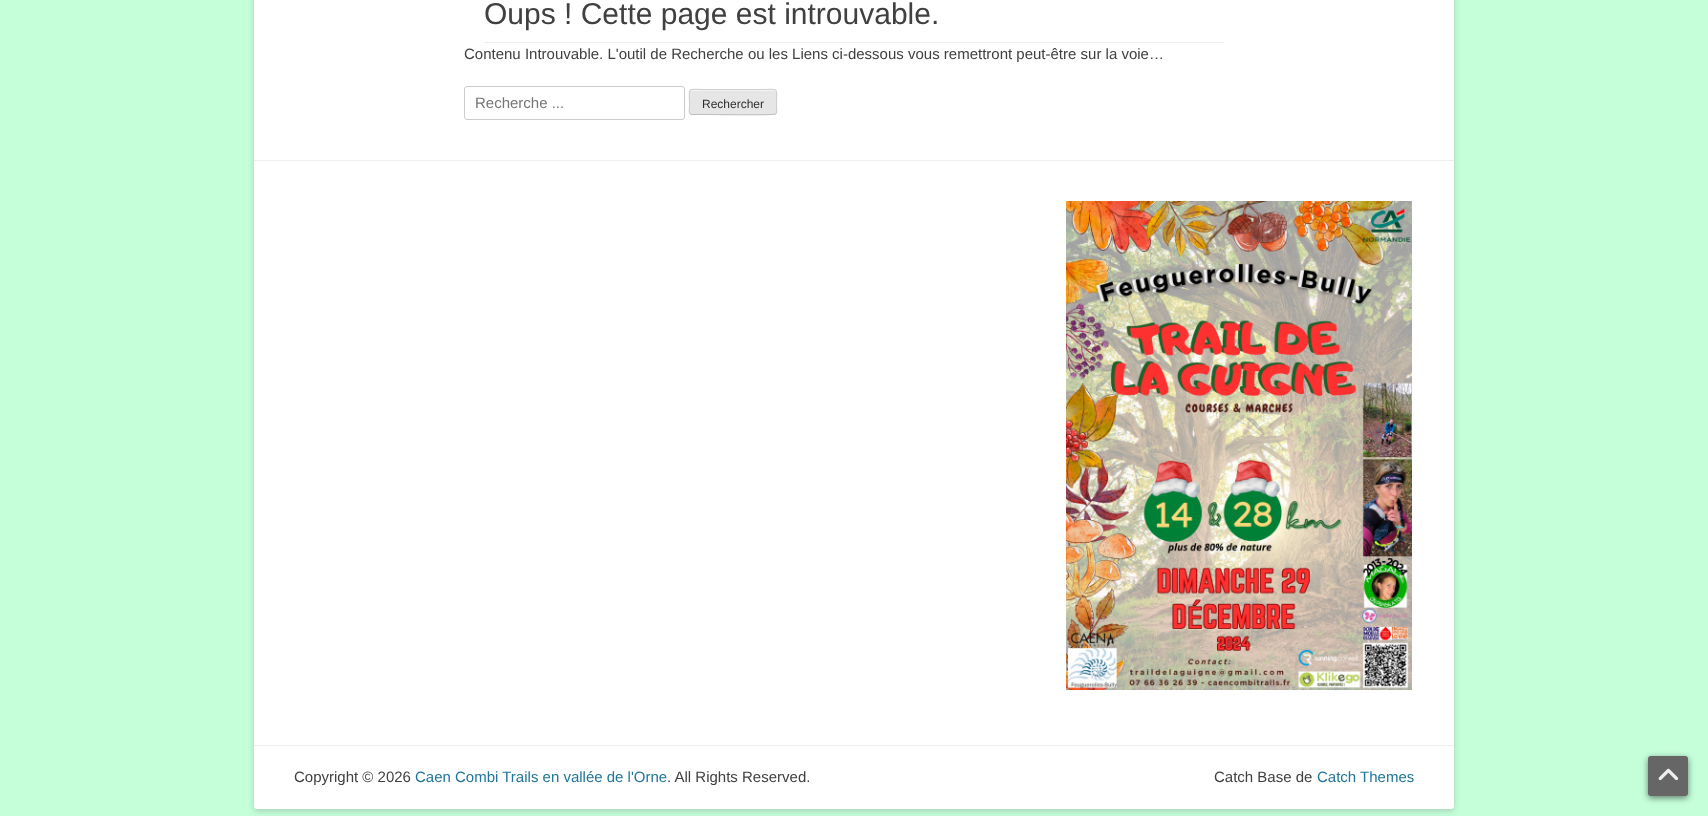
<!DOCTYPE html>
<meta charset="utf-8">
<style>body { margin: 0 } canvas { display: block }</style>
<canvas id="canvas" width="1708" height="816"></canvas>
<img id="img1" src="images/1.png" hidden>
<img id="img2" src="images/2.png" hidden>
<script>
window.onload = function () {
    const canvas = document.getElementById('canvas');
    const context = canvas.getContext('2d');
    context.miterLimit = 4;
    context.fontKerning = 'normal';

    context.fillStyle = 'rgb(196, 255, 218)';
    context.fillRect(0, 0, 1708, 816);
    context.fillStyle = 'rgba(100, 100, 100, 0.3)';
    context.filter = 'blur(3px)';
    context.beginPath();
    context.roundRect(254, -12, 1200, 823, 3);
    context.fill();
    context.filter = 'none';
    context.fillStyle = 'rgb(255, 255, 255)';
    context.beginPath();
    context.roundRect(254, -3, 1200, 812, 3);
    context.fill();
    context.fillStyle = 'rgb(238, 238, 238)';
    context.fillRect(484, 42, 740, 1);
    context.beginPath();
    context.roundRect(464.5, 86.5, 220, 33, 2.5);
    context.strokeStyle = 'rgb(204, 204, 204)';
    context.stroke();
    context.fillStyle = 'rgb(230, 230, 230)';
    context.beginPath();
    context.roundRect(689, 89, 88, 26, 3);
    context.fill();
    context.fillStyle = 'rgb(243, 243, 243)';
    context.beginPath();
    context.moveTo(692, 91);
    context.lineTo(774, 91);
    context.bezierCurveTo(775, 91, 776, 92, 776, 93);
    context.bezierCurveTo(776, 86, 763, 90, 760, 90);
    context.lineTo(706, 90);
    context.bezierCurveTo(703, 90, 690, 86, 690, 93);
    context.bezierCurveTo(690, 92, 691, 91, 692, 91);
    context.closePath();
    context.fill();
    context.beginPath();
    context.moveTo(776, 114);
    context.lineTo(775.5, 114);
    context.bezierCurveTo(773.5, 115.5, 713, 114.5, 705.5, 114.5);
    context.lineTo(692, 114.5);
    context.lineTo(690, 114);
    context.strokeStyle = 'rgb(187, 187, 187)';
    context.stroke();
    context.beginPath();
    context.moveTo(690, 114);
    context.bezierCurveTo(688.5, 112, 689.5, 107.5, 689.5, 105.5);
    context.bezierCurveTo(689.5, 86.5, 686, 89.5, 705.5, 89.5);
    context.lineTo(760.5, 89.5);
    context.bezierCurveTo(780, 89.5, 776.5, 86.5, 776.5, 105.5);
    context.bezierCurveTo(776.5, 107.5, 777.5, 112, 776, 114);
    context.strokeStyle = 'rgb(204, 204, 204)';
    context.stroke();
    context.fillStyle = 'rgb(238, 238, 238)';
    context.fillRect(254, 160, 1200, 1);
    context.drawImage(document.getElementById('img1'), 1066, 201, 346, 489);
    context.fillRect(254, 745, 1200, 1);
    context.fillStyle = 'rgba(0, 0, 0, 0.5)';
    context.filter = 'blur(3px)';
    context.beginPath();
    context.roundRect(1648, 758, 40, 40, 3);
    context.fill();
    context.filter = 'none';
    context.fillStyle = 'rgb(102, 102, 102)';
    context.beginPath();
    context.roundRect(1648, 756, 40, 40, 3);
    context.fill();
    context.drawImage(document.getElementById('img2'), 1658, 768, 21, 13);
    context.font = '30px Liberation Sans';
    context.fillStyle = 'rgb(64, 64, 64)';
    context.fillText('Oups ! Cette page est introuvable.', 484, 24);
    context.font = '15px Liberation Sans';
    context.fillText('Contenu Introuvable. L\'outil de Recherche ou les Liens ci-dessous vous remettront peut-être sur la voie…', 464, 59);
    context.fillStyle = 'rgb(117, 117, 117)';
    context.fillText('Recherche ...', 475, 108);
    context.font = '12px Liberation Sans';
    context.fillStyle = 'rgb(46, 46, 46)';
    context.fillText('Rechercher', 702, 108);
    context.font = '15px Liberation Sans';
    context.fillStyle = 'rgb(64, 64, 64)';
    context.fillText('Copyright © 2026', 294, 782);
    context.fillStyle = 'rgb(33, 117, 155)';
    context.fillText('Caen Combi Trails en vallée de l\'Orne', 415, 782);
    context.fillStyle = 'rgb(64, 64, 64)';
    context.fillText('. All Rights Reserved.', 667, 782);
    context.fillText('Catch Base de', 1214, 782);
    context.fillStyle = 'rgb(33, 117, 155)';
    context.fillText('Catch Themes', 1317, 782);
};
</script>
